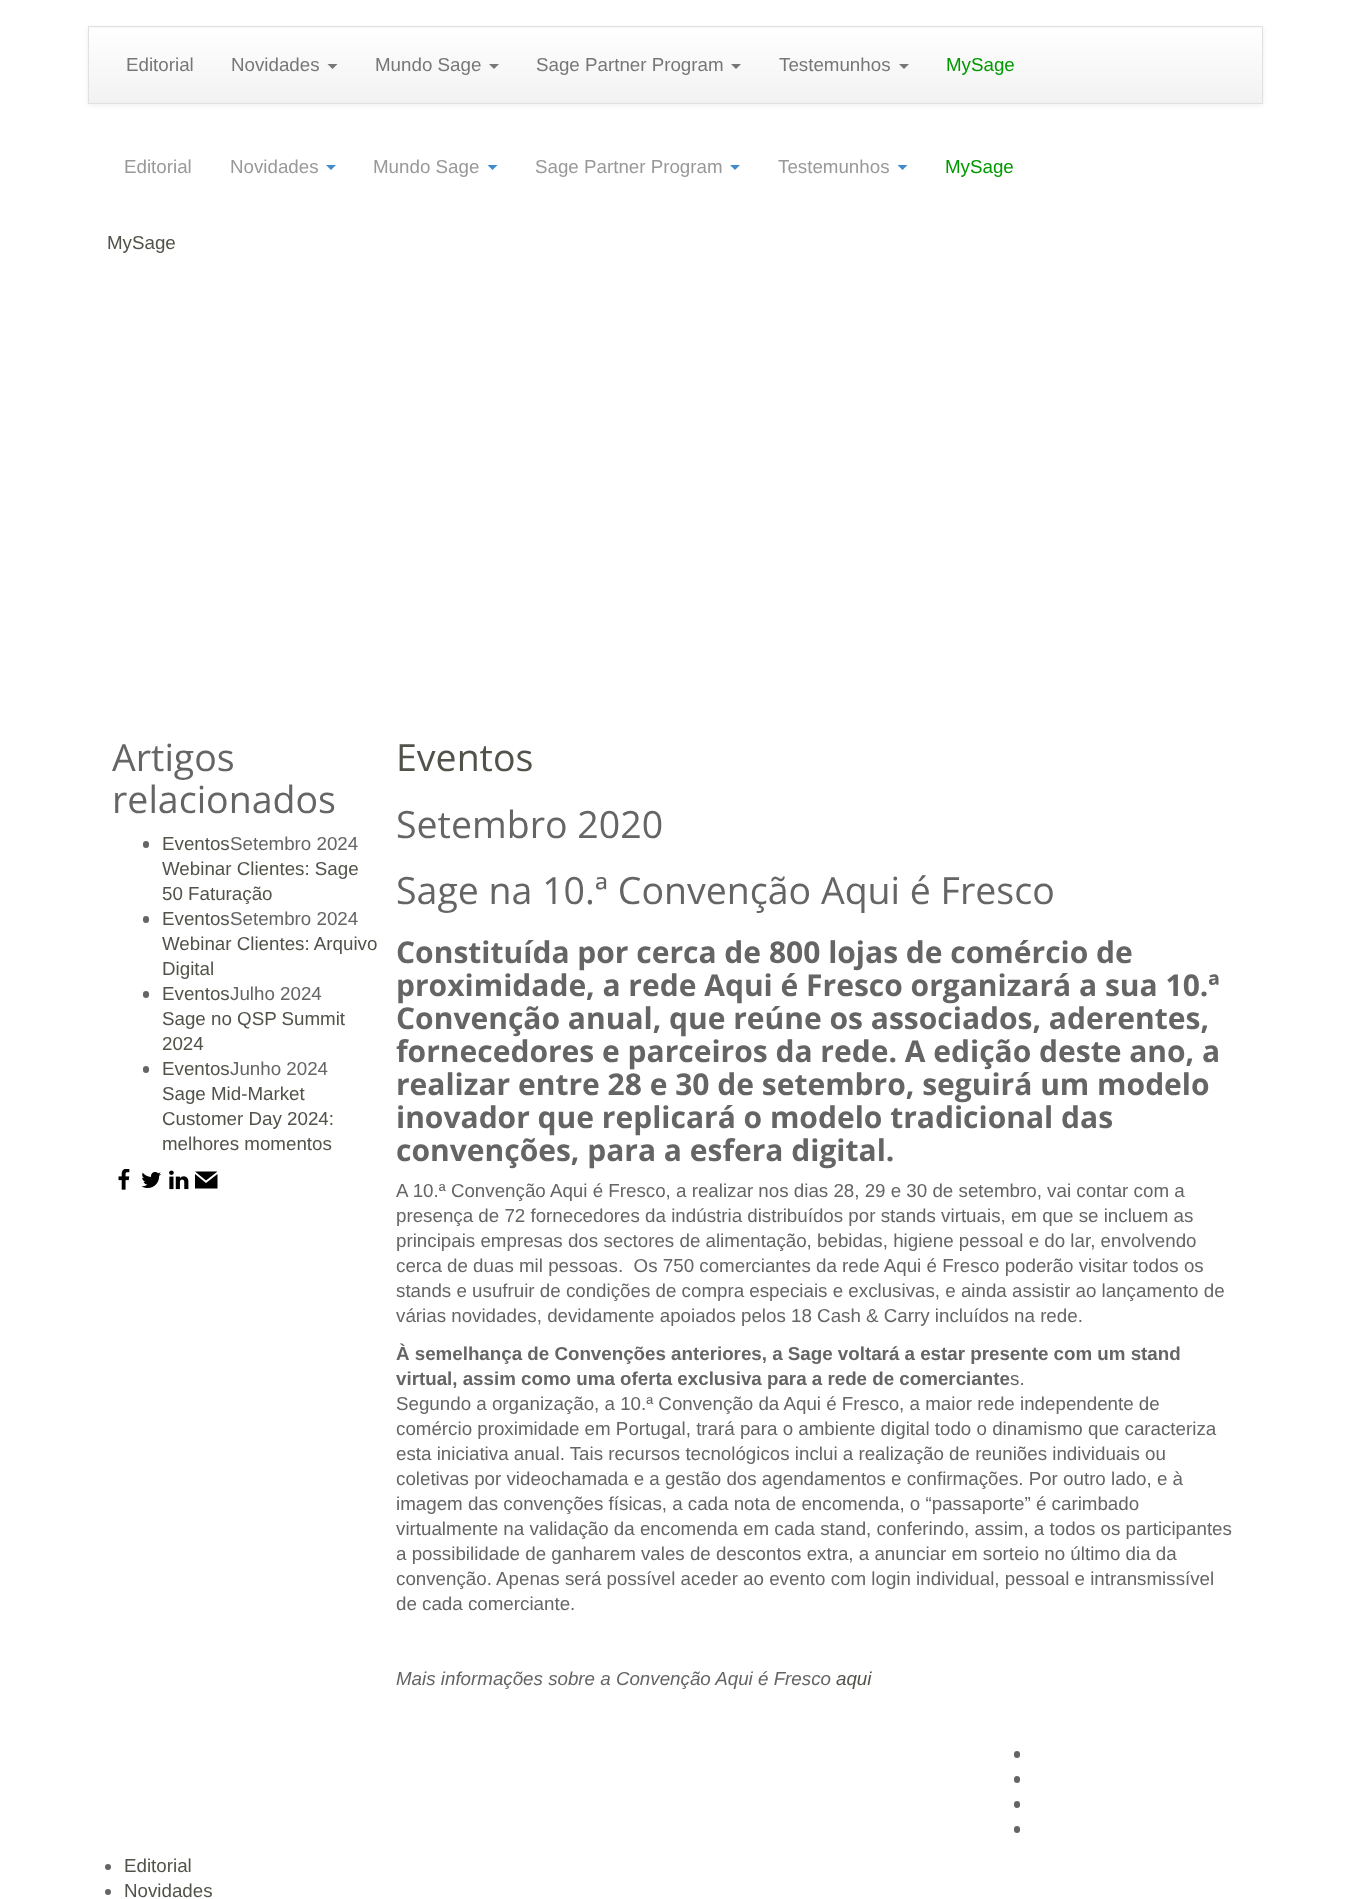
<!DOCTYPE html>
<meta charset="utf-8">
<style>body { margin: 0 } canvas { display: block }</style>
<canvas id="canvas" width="1348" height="1899"></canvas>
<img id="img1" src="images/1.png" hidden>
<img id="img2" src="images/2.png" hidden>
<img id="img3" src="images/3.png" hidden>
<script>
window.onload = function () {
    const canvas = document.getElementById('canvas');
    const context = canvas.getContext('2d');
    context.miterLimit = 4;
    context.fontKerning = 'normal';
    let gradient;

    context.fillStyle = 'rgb(255, 255, 255)';
    context.fillRect(0, 0, 1348, 1899);
    context.fillStyle = 'rgba(0, 0, 0, 0.07)';
    context.filter = 'blur(2.5px)';
    context.beginPath();
    context.rect(88, 28, 1175, 77);
    context.fill();
    context.filter = 'none';
    gradient = context.createLinearGradient(675, 27, 675, 103);
    gradient.addColorStop(0, 'rgb(255, 255, 255)');
    gradient.addColorStop(1, 'rgb(242, 242, 242)');
    context.fillStyle = gradient;
    context.fillRect(89, 28, 1173, 74);
    context.strokeStyle = 'rgb(225, 225, 225)';
    context.strokeRect(88.5, 26.5, 1174, 77);
    context.fillStyle = 'rgb(119, 119, 119)';
    context.beginPath();
    context.moveTo(327.5, 64);
    context.lineTo(337.5, 64);
    context.lineTo(332.5, 69);
    context.closePath();
    context.fill();
    context.beginPath();
    context.moveTo(489, 64);
    context.lineTo(499, 64);
    context.lineTo(494, 69);
    context.closePath();
    context.fill();
    context.beginPath();
    context.moveTo(731, 64);
    context.lineTo(741, 64);
    context.lineTo(736, 69);
    context.closePath();
    context.fill();
    context.beginPath();
    context.moveTo(899, 64);
    context.lineTo(909, 64);
    context.lineTo(904, 69);
    context.closePath();
    context.fill();
    context.fillStyle = 'rgb(66, 139, 202)';
    context.beginPath();
    context.moveTo(326, 165);
    context.lineTo(336, 165);
    context.lineTo(331, 170);
    context.closePath();
    context.fill();
    context.beginPath();
    context.moveTo(487.5, 165);
    context.lineTo(497.5, 165);
    context.lineTo(492.5, 170);
    context.closePath();
    context.fill();
    context.beginPath();
    context.moveTo(730, 165);
    context.lineTo(740, 165);
    context.lineTo(735, 170);
    context.closePath();
    context.fill();
    context.beginPath();
    context.moveTo(897.5, 165);
    context.lineTo(907.5, 165);
    context.lineTo(902.5, 170);
    context.closePath();
    context.fill();
    context.fillStyle = 'rgb(101, 101, 101)';
    context.beginPath();
    context.roundRect(143, 841, 6, 7, 3);
    context.fill();
    context.beginPath();
    context.roundRect(143, 916, 6, 7, 3);
    context.fill();
    context.beginPath();
    context.roundRect(143, 991, 6, 7, 3);
    context.fill();
    context.beginPath();
    context.roundRect(143, 1066, 6, 7, 3);
    context.fill();
    context.drawImage(document.getElementById('img1'), 118, 1169, 12, 21);
    context.drawImage(document.getElementById('img2'), 141, 1172, 20, 16);
    context.drawImage(document.getElementById('img3'), 169, 1170, 20, 20);
    context.fillStyle = 'rgb(0, 0, 0)';
    context.beginPath();
    context.moveTo(206, 1180.5);
    context.lineTo(195, 1171.5);
    context.lineTo(217.5, 1171.5);
    context.closePath();
    context.moveTo(206, 1183);
    context.lineTo(195, 1174);
    context.lineTo(195, 1188.5);
    context.lineTo(217.5, 1188.5);
    context.lineTo(217.5, 1174);
    context.closePath();
    context.fill();
    context.fillStyle = 'rgb(101, 101, 101)';
    context.beginPath();
    context.roundRect(1014, 1751, 6, 7, 3);
    context.fill();
    context.beginPath();
    context.roundRect(1014, 1776, 6, 7, 3);
    context.fill();
    context.beginPath();
    context.roundRect(1014, 1801, 6, 7, 3);
    context.fill();
    context.beginPath();
    context.roundRect(1014, 1826, 6, 7, 3);
    context.fill();
    context.beginPath();
    context.arc(108, 1867, 3, 0, 2 * Math.PI);
    context.fill();
    context.beginPath();
    context.arc(108, 1892, 3, 0, 2 * Math.PI);
    context.fill();
    context.font = '18.75px Liberation Sans';
    context.fillStyle = 'rgb(119, 119, 119)';
    context.fillText('Editorial', 126, 71);
    context.fillText('Novidades', 231, 71);
    context.fillText('Mundo Sage', 375, 71);
    context.fillText('Sage Partner Program', 536, 71);
    context.fillText('Testemunhos', 779, 71);
    context.fillStyle = 'rgb(0, 153, 0)';
    context.fillText('MySage', 946, 71);
    context.fillStyle = 'rgb(153, 153, 153)';
    context.fillText('Editorial', 124, 173);
    context.fillText('Novidades', 230, 173);
    context.fillText('Mundo Sage', 373, 173);
    context.fillText('Sage Partner Program', 535, 173);
    context.fillText('Testemunhos', 778, 173);
    context.fillStyle = 'rgb(0, 153, 0)';
    context.fillText('MySage', 945, 173);
    context.fillStyle = 'rgb(81, 83, 74)';
    context.fillText('MySage', 107, 249);
    context.font = '37.5px Open Sans';
    context.fillStyle = 'rgb(101, 101, 101)';
    context.fillText('Artigos', 112, 771);
    context.fillText('relacionados', 112, 813);
    context.font = '18.75px Liberation Sans';
    context.fillStyle = 'rgb(81, 83, 74)';
    context.fillText('Eventos', 162, 850);
    context.fillStyle = 'rgb(101, 101, 101)';
    context.fillText('Setembro 2024', 230, 850);
    context.fillStyle = 'rgb(81, 83, 74)';
    context.fillText('Webinar Clientes: Sage', 162, 875);
    context.fillText('50 Faturação', 162, 900);
    context.fillText('Eventos', 162, 925);
    context.fillStyle = 'rgb(101, 101, 101)';
    context.fillText('Setembro 2024', 230, 925);
    context.fillStyle = 'rgb(81, 83, 74)';
    context.fillText('Webinar Clientes: Arquivo', 162, 950);
    context.fillText('Digital', 162, 975);
    context.fillText('Eventos', 162, 1000);
    context.fillStyle = 'rgb(101, 101, 101)';
    context.fillText('Julho 2024', 230, 1000);
    context.fillStyle = 'rgb(81, 83, 74)';
    context.fillText('Sage no QSP Summit', 162, 1025);
    context.fillText('2024', 162, 1050);
    context.fillText('Eventos', 162, 1075);
    context.fillStyle = 'rgb(101, 101, 101)';
    context.fillText('Junho 2024', 230, 1075);
    context.fillStyle = 'rgb(81, 83, 74)';
    context.fillText('Sage Mid-Market', 162, 1100);
    context.fillText('Customer Day 2024:', 162, 1125);
    context.fillText('melhores momentos', 162, 1150);
    context.font = '37.5px Open Sans';
    context.fillText('Eventos', 396, 771);
    context.fillStyle = 'rgb(101, 101, 101)';
    context.fillText('Setembro 2020', 396, 838);
    context.fillText('Sage na 10.ª Convenção Aqui é Fresco', 396, 904);
    context.font = 'bold 30px Open Sans';
    context.fillText('Constituída por cerca de 800 lojas de comércio de', 396, 963);
    context.fillText('proximidade, a rede Aqui é Fresco organizará a sua 10.ª', 396, 996);
    context.fillText('Convenção anual, que reúne os associados, aderentes,', 396, 1029);
    context.fillText('fornecedores e parceiros da rede. A edição deste ano, a', 396, 1062);
    context.fillText('realizar entre 28 e 30 de setembro, seguirá um modelo', 396, 1095);
    context.fillText('inovador que replicará o modelo tradicional das', 396, 1128);
    context.fillText('convenções, para a esfera digital.', 396, 1161);
    context.font = '18.75px Liberation Sans';
    context.fillText('A 10.ª Convenção Aqui é Fresco, a realizar nos dias 28, 29 e 30 de setembro, vai contar com a', 396, 1197);
    context.fillText('presença de 72 fornecedores da indústria distribuídos por stands virtuais, em que se incluem as', 396, 1222);
    context.fillText('principais empresas dos sectores de alimentação, bebidas, higiene pessoal e do lar, envolvendo', 396, 1247);
    context.fillText('cerca de duas mil pessoas.  Os 750 comerciantes da rede Aqui é Fresco poderão visitar todos os', 396, 1272);
    context.fillText('stands e usufruir de condições de compra especiais e exclusivas, e ainda assistir ao lançamento de', 396, 1297);
    context.fillText('várias novidades, devidamente apoiados pelos 18 Cash & Carry incluídos na rede.', 396, 1322);
    context.font = 'bold 18.75px Liberation Sans';
    context.fillText('À semelhança de Convenções anteriores, a Sage voltará a estar presente com um stand', 396, 1360);
    context.fillText('virtual, assim como uma oferta exclusiva para a rede de comerciante', 396, 1385);
    context.font = '18.75px Liberation Sans';
    context.fillText('s.', 1010, 1385);
    context.fillText('Segundo a organização, a 10.ª Convenção da Aqui é Fresco, a maior rede independente de', 396, 1410);
    context.fillText('comércio proximidade em Portugal, trará para o ambiente digital todo o dinamismo que caracteriza', 396, 1435);
    context.fillText('esta iniciativa anual. Tais recursos tecnológicos inclui a realização de reuniões individuais ou', 396, 1460);
    context.fillText('coletivas por videochamada e a gestão dos agendamentos e confirmações. Por outro lado, e à', 396, 1485);
    context.fillText('imagem das convenções físicas, a cada nota de encomenda, o “passaporte” é carimbado', 396, 1510);
    context.fillText('virtualmente na validação da encomenda em cada stand, conferindo, assim, a todos os participantes', 396, 1535);
    context.fillText('a possibilidade de ganharem vales de descontos extra, a anunciar em sorteio no último dia da', 396, 1560);
    context.fillText('convenção. Apenas será possível aceder ao evento com login individual, pessoal e intransmissível', 396, 1585);
    context.fillText('de cada comerciante.', 396, 1610);
    context.font = 'italic 18.75px Liberation Sans';
    context.fillText('Mais informações sobre a Convenção Aqui é Fresco', 396, 1685);
    context.fillStyle = 'rgb(81, 83, 74)';
    context.fillText('aqui', 836, 1685);
    context.font = '18.75px Liberation Sans';
    context.fillText('Editorial', 124, 1872);
    context.fillText('Novidades', 124, 1897);
};
</script>
